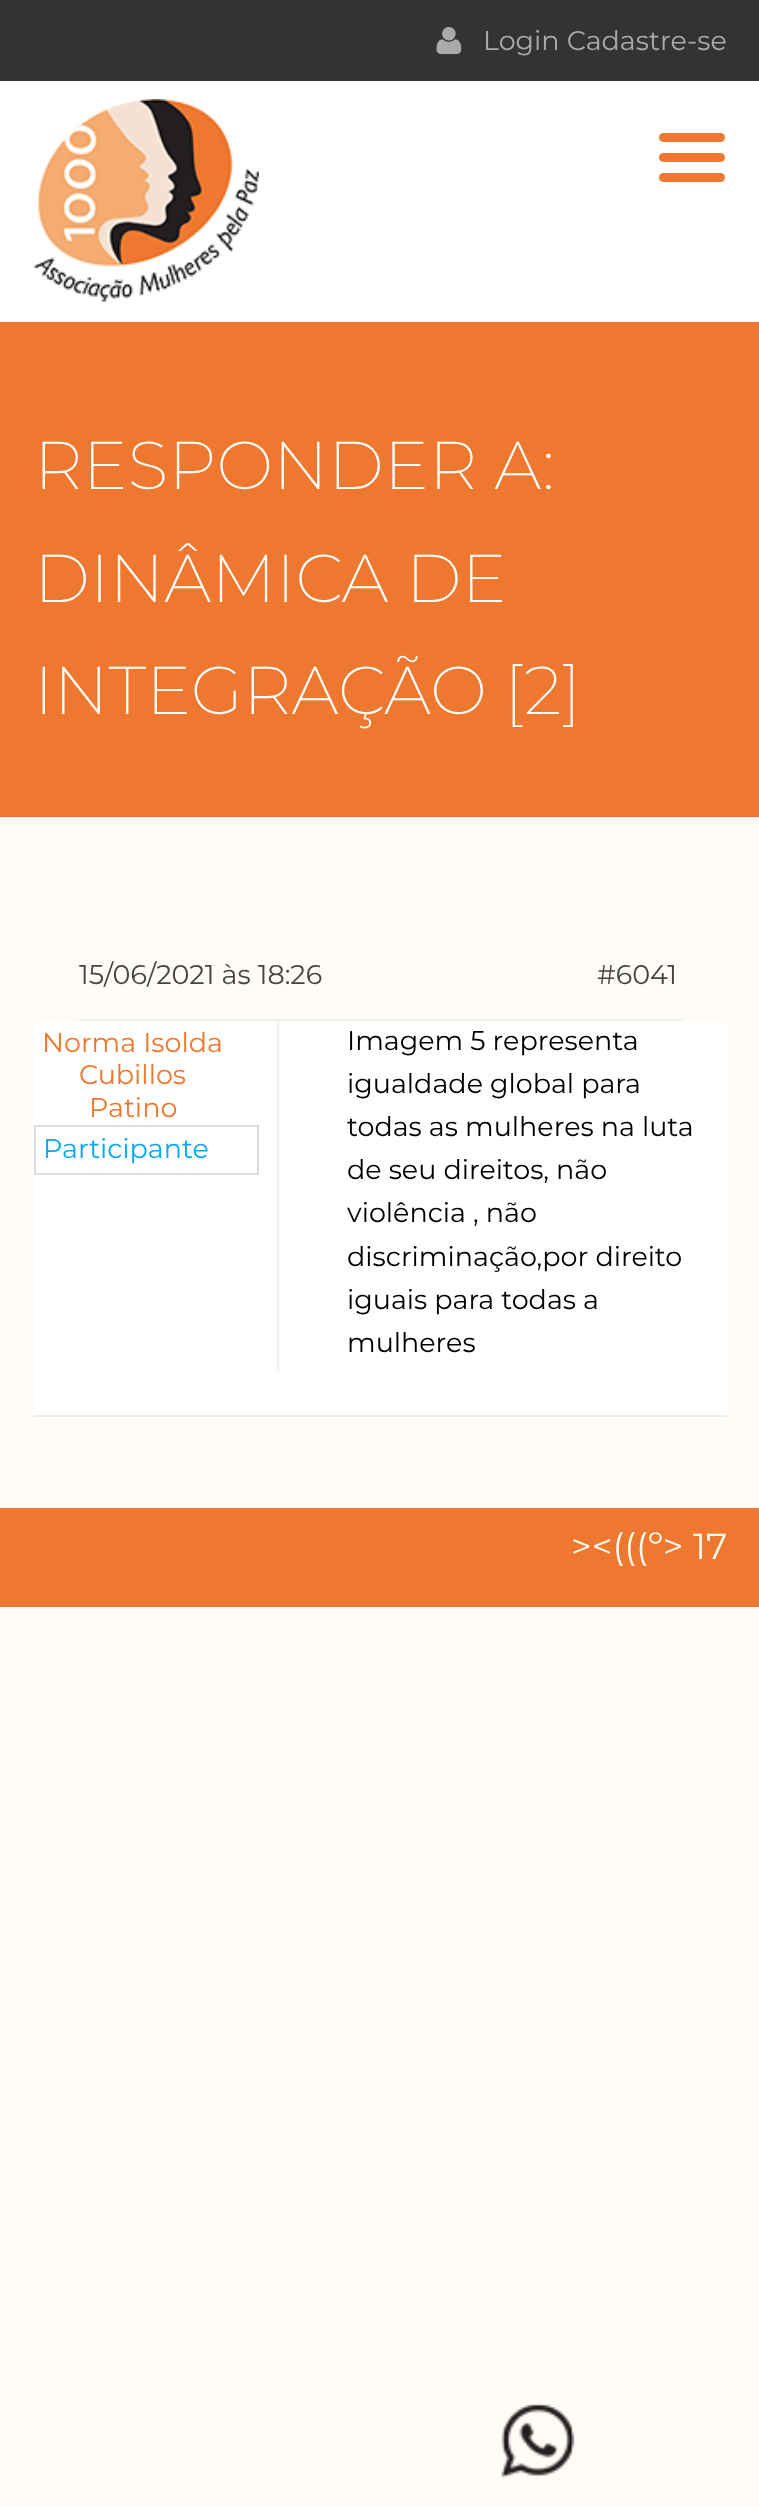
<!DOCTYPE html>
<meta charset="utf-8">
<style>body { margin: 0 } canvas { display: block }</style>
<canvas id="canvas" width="759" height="2507"></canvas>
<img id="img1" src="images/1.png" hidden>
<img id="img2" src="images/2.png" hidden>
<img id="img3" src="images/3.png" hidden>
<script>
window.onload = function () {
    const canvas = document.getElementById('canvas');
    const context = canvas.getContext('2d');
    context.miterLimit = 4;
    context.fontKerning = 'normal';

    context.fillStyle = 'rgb(255, 251, 247)';
    context.fillRect(0, 0, 759, 2507);
    context.fillStyle = 'rgb(51, 51, 51)';
    context.fillRect(0, 0, 759, 81);
    context.drawImage(document.getElementById('img1'), 436, 27, 26, 27);
    context.fillStyle = 'rgb(255, 255, 255)';
    context.fillRect(0, 81, 759, 241);
    context.drawImage(document.getElementById('img2'), 33, 99, 226, 203);
    context.fillStyle = 'rgb(238, 120, 47)';
    context.beginPath();
    context.roundRect(659, 133, 66, 9, 4.5);
    context.fill();
    context.beginPath();
    context.roundRect(659, 153, 66, 9, 4.5);
    context.fill();
    context.beginPath();
    context.roundRect(659, 173, 66, 9, 4.5);
    context.fill();
    context.fillRect(0, 322, 759, 495);
    context.fillStyle = 'rgb(238, 238, 238)';
    context.fillRect(79, 1019, 603, 2);
    context.fillStyle = 'rgb(255, 255, 255)';
    context.fillRect(34, 1022, 693, 396);
    context.fillStyle = 'rgb(238, 238, 238)';
    context.fillRect(34, 1415, 693, 2);
    context.strokeStyle = 'rgb(221, 221, 221)';
    context.lineWidth = 2;
    context.strokeRect(35, 1126, 223, 48);
    context.fillRect(277, 1022, 2, 348);
    context.fillStyle = 'rgb(238, 120, 47)';
    context.fillRect(0, 1508, 759, 99);
    context.drawImage(document.getElementById('img3'), 501, 2403, 74, 75);
    context.font = '27px Montserrat';
    context.fillStyle = 'rgb(170, 170, 170)';
    context.fillText('Login Cadastre-se', 483, 50);
    context.font = '200 67.5px Montserrat';
    context.fillStyle = 'rgb(255, 255, 255)';
    context.fillText('RESPONDER A:', 34, 489);
    context.fillText('DINÂMICA DE', 34, 602);
    context.fillText('INTEGRAÇÃO [2]', 34, 714);
    context.font = '27px Montserrat';
    context.fillStyle = 'rgb(68, 68, 68)';
    context.fillText('15/06/2021 às 18:26', 79, 984);
    context.fillText('#6041', 597, 984);
    context.fillStyle = 'rgb(238, 120, 47)';
    context.fillText('Norma Isolda', 42, 1052);
    context.fillText('Cubillos', 79, 1084);
    context.fillText('Patino', 89, 1117);
    context.fillStyle = 'rgb(3, 169, 244)';
    context.fillText('Participante', 43, 1158);
    context.fillStyle = 'rgb(0, 0, 0)';
    context.fillText('Imagem 5 representa', 347, 1050);
    context.fillText('igualdade global para', 347, 1093);
    context.fillText('todas as mulheres na luta', 347, 1136);
    context.fillText('de seu direitos, não', 347, 1179);
    context.fillText('violência , não', 347, 1222);
    context.fillText('discriminação,por direito', 347, 1266);
    context.fillText('iguais para todas a', 347, 1309);
    context.fillText('mulheres', 347, 1352);
    context.font = '36px Montserrat';
    context.fillStyle = 'rgb(255, 251, 239)';
    context.fillText('><(((º> 17', 571, 1559);
};
</script>
